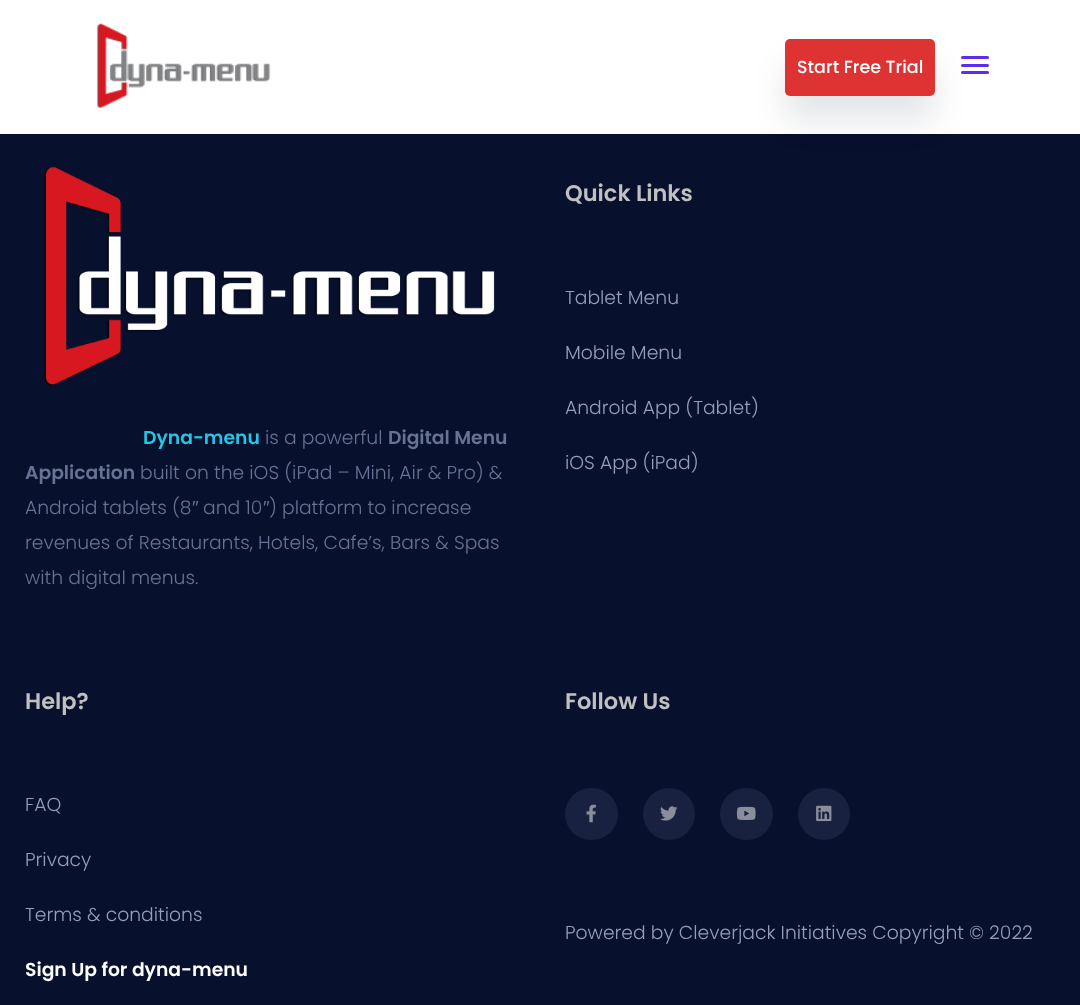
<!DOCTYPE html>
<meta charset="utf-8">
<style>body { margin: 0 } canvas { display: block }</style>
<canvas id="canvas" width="1080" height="1005"></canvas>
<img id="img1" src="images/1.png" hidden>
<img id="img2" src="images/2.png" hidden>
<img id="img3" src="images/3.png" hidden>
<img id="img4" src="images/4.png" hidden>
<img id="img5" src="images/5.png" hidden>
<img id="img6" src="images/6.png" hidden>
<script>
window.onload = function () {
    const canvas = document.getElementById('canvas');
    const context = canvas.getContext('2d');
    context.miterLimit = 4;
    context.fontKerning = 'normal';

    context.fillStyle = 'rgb(7, 17, 45)';
    context.fillRect(0, 0, 1080, 1005);
    context.fillStyle = 'rgb(255, 255, 255)';
    context.fillRect(0, 0, 1080, 134);
    context.drawImage(document.getElementById('img1'), 96, 23, 175, 86);
    context.fillStyle = 'rgb(94, 44, 237)';
    context.beginPath();
    context.roundRect(961, 56, 28, 3, 1.5);
    context.fill();
    context.beginPath();
    context.roundRect(961, 64, 28, 3, 1.5);
    context.fill();
    context.beginPath();
    context.roundRect(961, 71, 28, 3, 1.5);
    context.fill();
    context.fillStyle = 'rgba(0, 11, 40, 0.1)';
    context.filter = 'blur(15px)';
    context.beginPath();
    context.roundRect(785, 64, 150, 57, 5);
    context.fill();
    context.filter = 'none';
    context.fillStyle = 'rgb(221, 51, 51)';
    context.beginPath();
    context.roundRect(785, 39, 150, 57, 5);
    context.fill();
    context.drawImage(document.getElementById('img2'), 44, 166, 451, 220);
    context.fillStyle = 'rgb(24, 34, 64)';
    context.beginPath();
    context.roundRect(565, 788, 53, 52, 26);
    context.fill();
    context.drawImage(document.getElementById('img3'), 586, 804, 10, 19);
    context.beginPath();
    context.arc(669, 814, 26, 0, 2 * Math.PI);
    context.fill();
    context.drawImage(document.getElementById('img4'), 660, 806, 18, 15);
    context.beginPath();
    context.roundRect(720, 788, 53, 52, 26);
    context.fill();
    context.drawImage(document.getElementById('img5'), 736, 806, 20, 14);
    context.beginPath();
    context.arc(824, 814, 26, 0, 2 * Math.PI);
    context.fill();
    context.drawImage(document.getElementById('img6'), 816, 805, 16, 17);
    context.font = '500 17.5px Poppins';
    context.fillStyle = 'rgb(255, 255, 255)';
    context.fillText('Start Free Trial', 797, 73);
    context.font = '600 22.5px Poppins';
    context.fillStyle = 'rgb(192, 192, 192)';
    context.fillText('Quick Links', 565, 201);
    context.font = '300 18.75px Poppins';
    context.fillStyle = 'rgb(149, 158, 184)';
    context.fillText('Tablet Menu', 565, 304);
    context.fillText('Mobile Menu', 565, 359);
    context.fillText('Android App (Tablet)', 565, 414);
    context.fillText('iOS App (iPad)', 565, 469);
    context.font = '600 18.75px Poppins';
    context.fillStyle = 'rgb(38, 196, 229)';
    context.fillText('Dyna-menu', 143, 444);
    context.font = '300 18.75px Poppins';
    context.fillStyle = 'rgb(103, 114, 148)';
    context.fillText('is a powerful', 265, 444);
    context.font = '600 18.75px Poppins';
    context.fillText('Digital Menu', 388, 444);
    context.fillText('Application', 25, 479);
    context.font = '300 18.75px Poppins';
    context.fillText('built on the iOS (iPad – Mini, Air & Pro) &', 140, 479);
    context.fillText('Android tablets (8', 25, 514);
    context.font = '18.75px Liberation Sans';
    context.fillText('″', 192, 514);
    context.font = '300 18.75px Poppins';
    context.fillText('and 10', 203, 514);
    context.font = '18.75px Liberation Sans';
    context.fillText('″', 263, 514);
    context.font = '300 18.75px Poppins';
    context.fillText(') platform to increase', 269, 514);
    context.fillText('revenues of Restaurants, Hotels, Cafe’s, Bars & Spas', 25, 549);
    context.fillText('with digital menus.', 25, 584);
    context.font = '600 22.5px Poppins';
    context.fillStyle = 'rgb(192, 192, 192)';
    context.fillText('Help?', 25, 709);
    context.font = '300 18.75px Poppins';
    context.fillStyle = 'rgb(149, 158, 184)';
    context.fillText('FAQ', 25, 811);
    context.fillText('Privacy', 25, 866);
    context.fillText('Terms & conditions', 25, 921);
    context.font = '600 18.75px Poppins';
    context.fillStyle = 'rgb(255, 255, 255)';
    context.fillText('Sign Up for dyna-menu', 25, 976);
    context.font = '600 22.5px Poppins';
    context.fillStyle = 'rgb(192, 192, 192)';
    context.fillText('Follow Us', 565, 709);
    context.font = '300 18.75px Poppins';
    context.fillStyle = 'rgb(149, 158, 184)';
    context.fillText('Powered by Cleverjack Initiatives Copyright © 2022', 565, 939);
};
</script>
